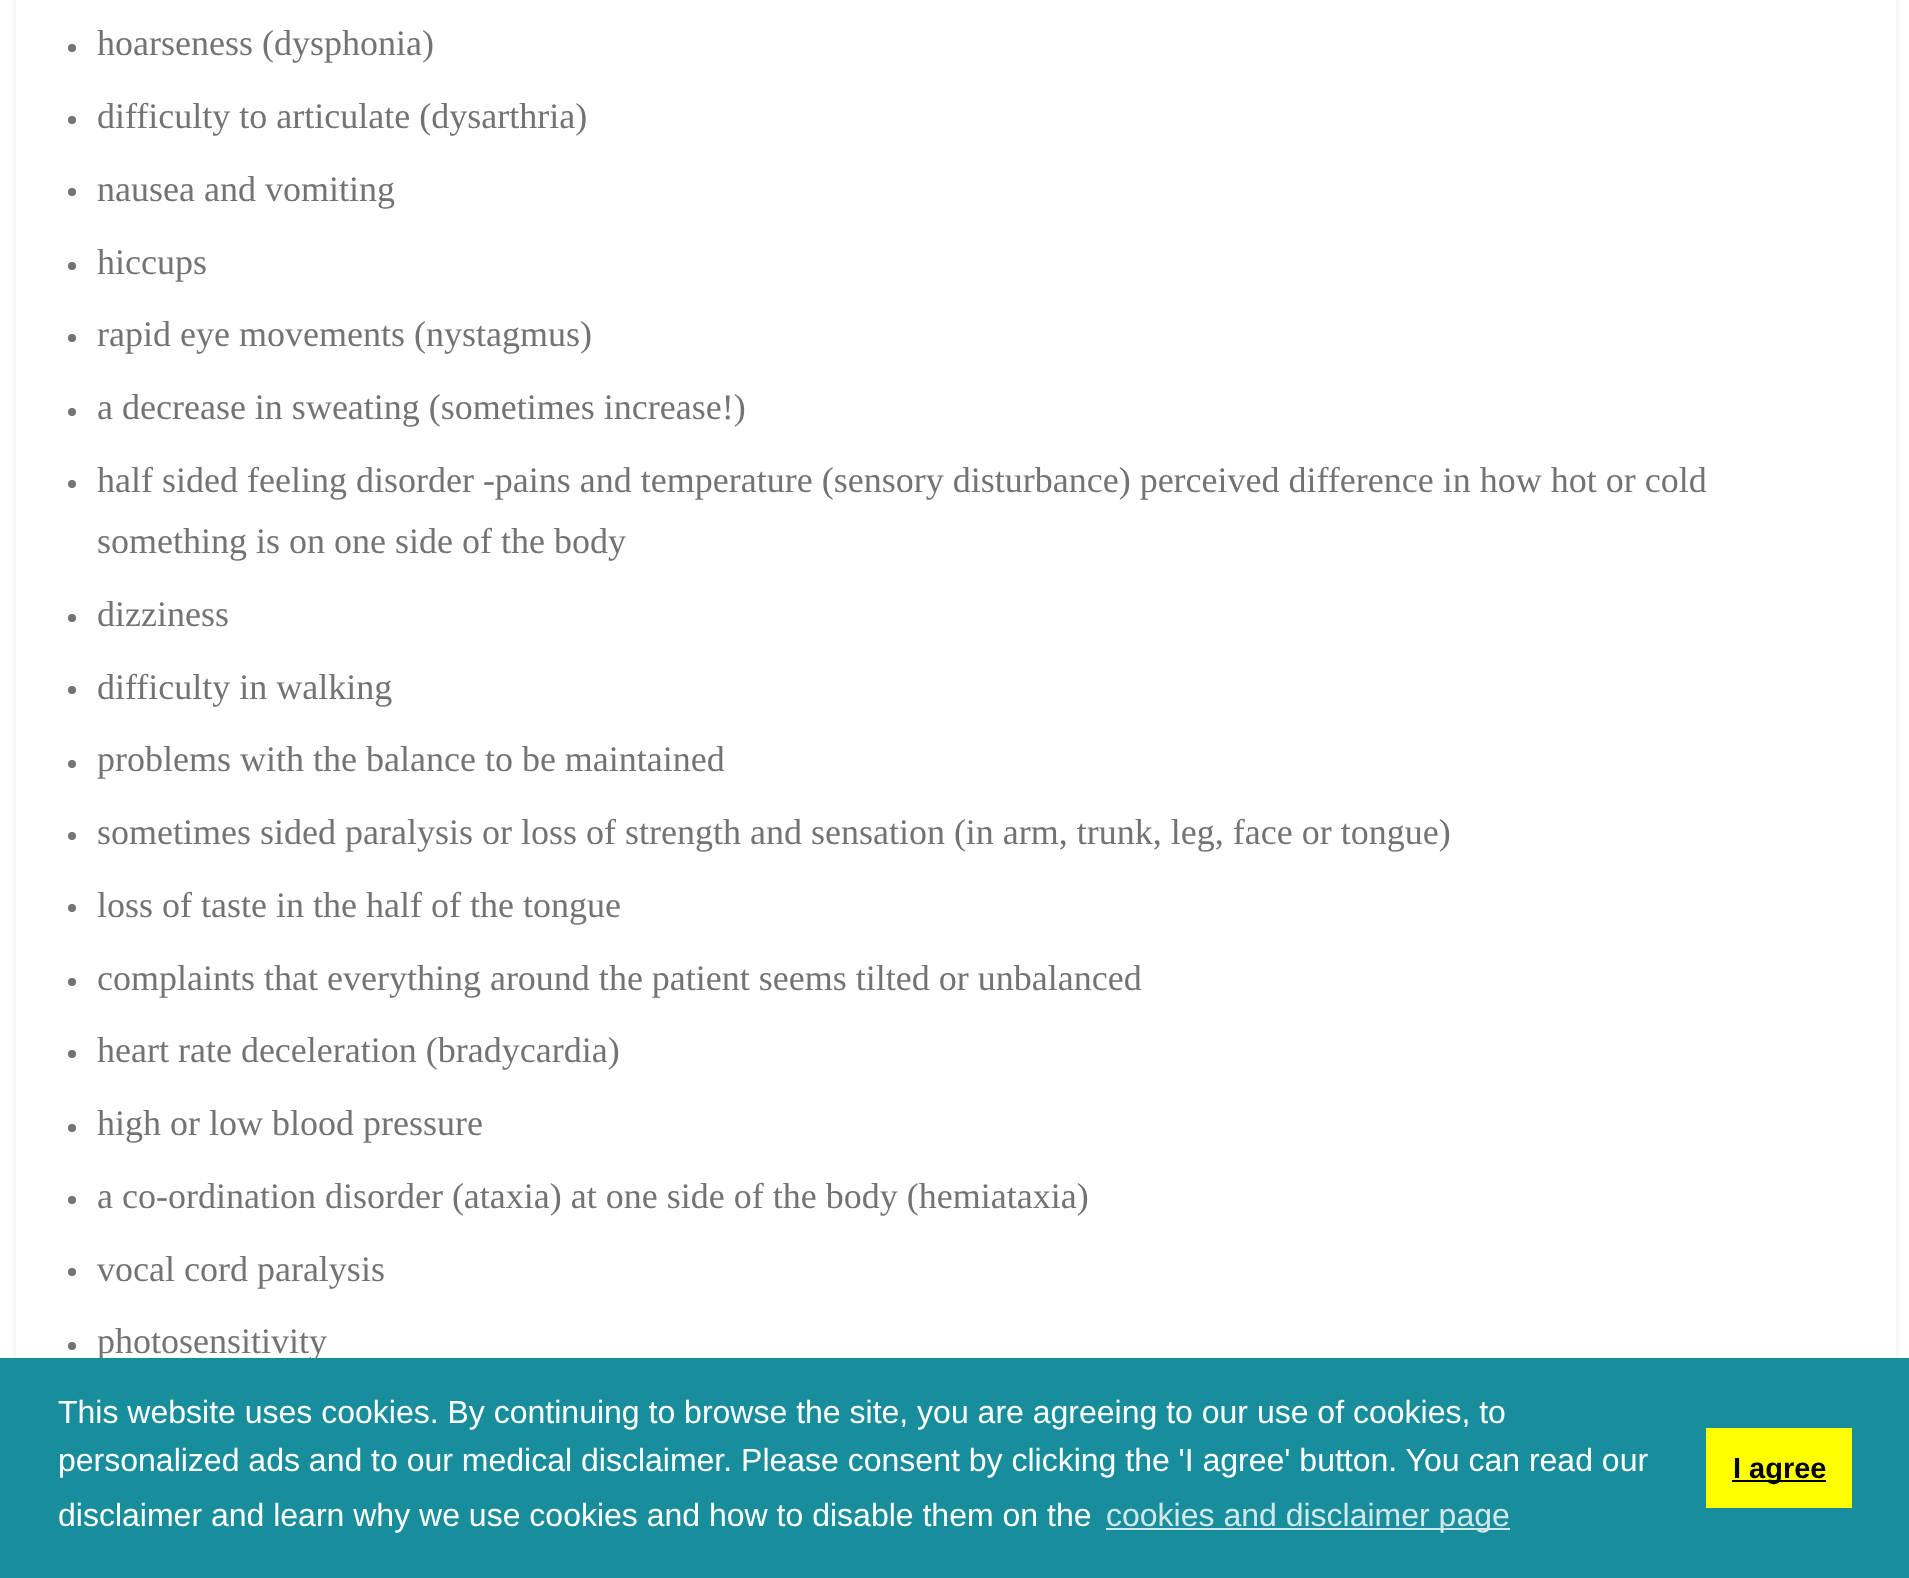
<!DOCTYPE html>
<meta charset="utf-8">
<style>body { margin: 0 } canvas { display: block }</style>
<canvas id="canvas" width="1909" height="1578"></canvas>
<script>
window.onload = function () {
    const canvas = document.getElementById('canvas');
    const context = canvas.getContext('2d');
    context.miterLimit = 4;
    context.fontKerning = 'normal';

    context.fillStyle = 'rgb(255, 255, 255)';
    context.fillRect(0, 0, 1909, 1578);
    context.save();
    context.beginPath();
    context.moveTo(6, 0);
    context.lineTo(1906, 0);
    context.lineTo(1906, 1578);
    context.lineTo(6, 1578);
    context.closePath();
    context.moveTo(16, -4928);
    context.lineTo(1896, -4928);
    context.lineTo(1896, 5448);
    context.lineTo(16, 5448);
    context.closePath();
    context.clip('evenodd');
    context.fillStyle = 'rgba(0, 0, 0, 0.1)';
    context.filter = 'blur(3px)';
    context.beginPath();
    context.rect(16, -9, 1880, 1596);
    context.fill();
    context.filter = 'none';
    context.restore();
    context.fillStyle = 'rgb(115, 115, 115)';
    context.beginPath();
    context.arc(72, 48, 4, 0, 2 * Math.PI);
    context.fill();
    context.beginPath();
    context.arc(72, 120, 4, 0, 2 * Math.PI);
    context.fill();
    context.beginPath();
    context.arc(72, 192, 4, 0, 2 * Math.PI);
    context.fill();
    context.beginPath();
    context.arc(72, 266, 4, 0, 2 * Math.PI);
    context.fill();
    context.beginPath();
    context.arc(72, 338, 4, 0, 2 * Math.PI);
    context.fill();
    context.beginPath();
    context.arc(72, 412, 4, 0, 2 * Math.PI);
    context.fill();
    context.beginPath();
    context.arc(72, 484, 4, 0, 2 * Math.PI);
    context.fill();
    context.beginPath();
    context.arc(72, 618, 4, 0, 2 * Math.PI);
    context.fill();
    context.beginPath();
    context.arc(72, 690, 4, 0, 2 * Math.PI);
    context.fill();
    context.beginPath();
    context.arc(72, 764, 4, 0, 2 * Math.PI);
    context.fill();
    context.beginPath();
    context.arc(72, 836, 4, 0, 2 * Math.PI);
    context.fill();
    context.beginPath();
    context.arc(72, 908, 4, 0, 2 * Math.PI);
    context.fill();
    context.beginPath();
    context.arc(72, 982, 4, 0, 2 * Math.PI);
    context.fill();
    context.beginPath();
    context.arc(72, 1054, 4, 0, 2 * Math.PI);
    context.fill();
    context.beginPath();
    context.arc(72, 1128, 4, 0, 2 * Math.PI);
    context.fill();
    context.beginPath();
    context.arc(72, 1200, 4, 0, 2 * Math.PI);
    context.fill();
    context.beginPath();
    context.arc(72, 1272, 4, 0, 2 * Math.PI);
    context.fill();
    context.beginPath();
    context.arc(72, 1346, 4, 0, 2 * Math.PI);
    context.fill();
    context.font = '36px Liberation Serif';
    context.fillText('hoarseness (dysphonia)', 97, 55);
    context.fillText('difficulty to articulate (dysarthria)', 97, 128);
    context.fillText('nausea and vomiting', 97, 201);
    context.fillText('hiccups', 97, 274);
    context.fillText('rapid eye movements (nystagmus)', 97, 346);
    context.fillText('a decrease in sweating (sometimes increase!)', 97, 419);
    context.fillText('half sided feeling disorder -pains and temperature (sensory disturbance) perceived difference in how hot or cold', 97, 492);
    context.fillText('something is on one side of the body', 97, 553);
    context.fillText('dizziness', 97, 626);
    context.fillText('difficulty in walking', 97, 699);
    context.fillText('problems with the balance to be maintained', 97, 771);
    context.fillText('sometimes sided paralysis or loss of strength and sensation (in arm, trunk, leg, face or tongue)', 97, 844);
    context.fillText('loss of taste in the half of the tongue', 97, 917);
    context.fillText('complaints that everything around the patient seems tilted or unbalanced', 97, 990);
    context.fillText('heart rate deceleration (bradycardia)', 97, 1062);
    context.fillText('high or low blood pressure', 97, 1135);
    context.fillText('a co-ordination disorder (ataxia) at one side of the body (hemiataxia)', 97, 1208);
    context.fillText('vocal cord paralysis', 97, 1281);
    context.fillText('photosensitivity', 97, 1353);
    context.fillStyle = 'rgb(24, 141, 156)';
    context.fillRect(0, 1358, 1909, 220);
    context.font = '32px Liberation Sans';
    context.fillStyle = 'rgb(255, 255, 255)';
    context.fillText('This website uses cookies. By continuing to browse the site, you are agreeing to our use of cookies, to', 58, 1423);
    context.fillText('personalized ads and to our medical disclaimer. Please consent by clicking the \'I agree\' button. You can read our', 58, 1471);
    context.fillText('disclaimer and learn why we use cookies and how to disable them on the', 58, 1526);
    context.fillStyle = 'rgb(209, 232, 235)';
    context.fillRect(1106, 1528, 404, 2);
    context.fillText('cookies and disclaimer page', 1106, 1526);
    context.fillStyle = 'rgb(255, 255, 0)';
    context.fillRect(1706, 1428, 146, 80);
    context.fillStyle = 'rgb(0, 0, 0)';
    context.fillRect(1732, 1480, 94, 2);
    context.font = 'bold 29px Liberation Sans';
    context.fillText('I agree', 1733, 1478);
};
</script>
